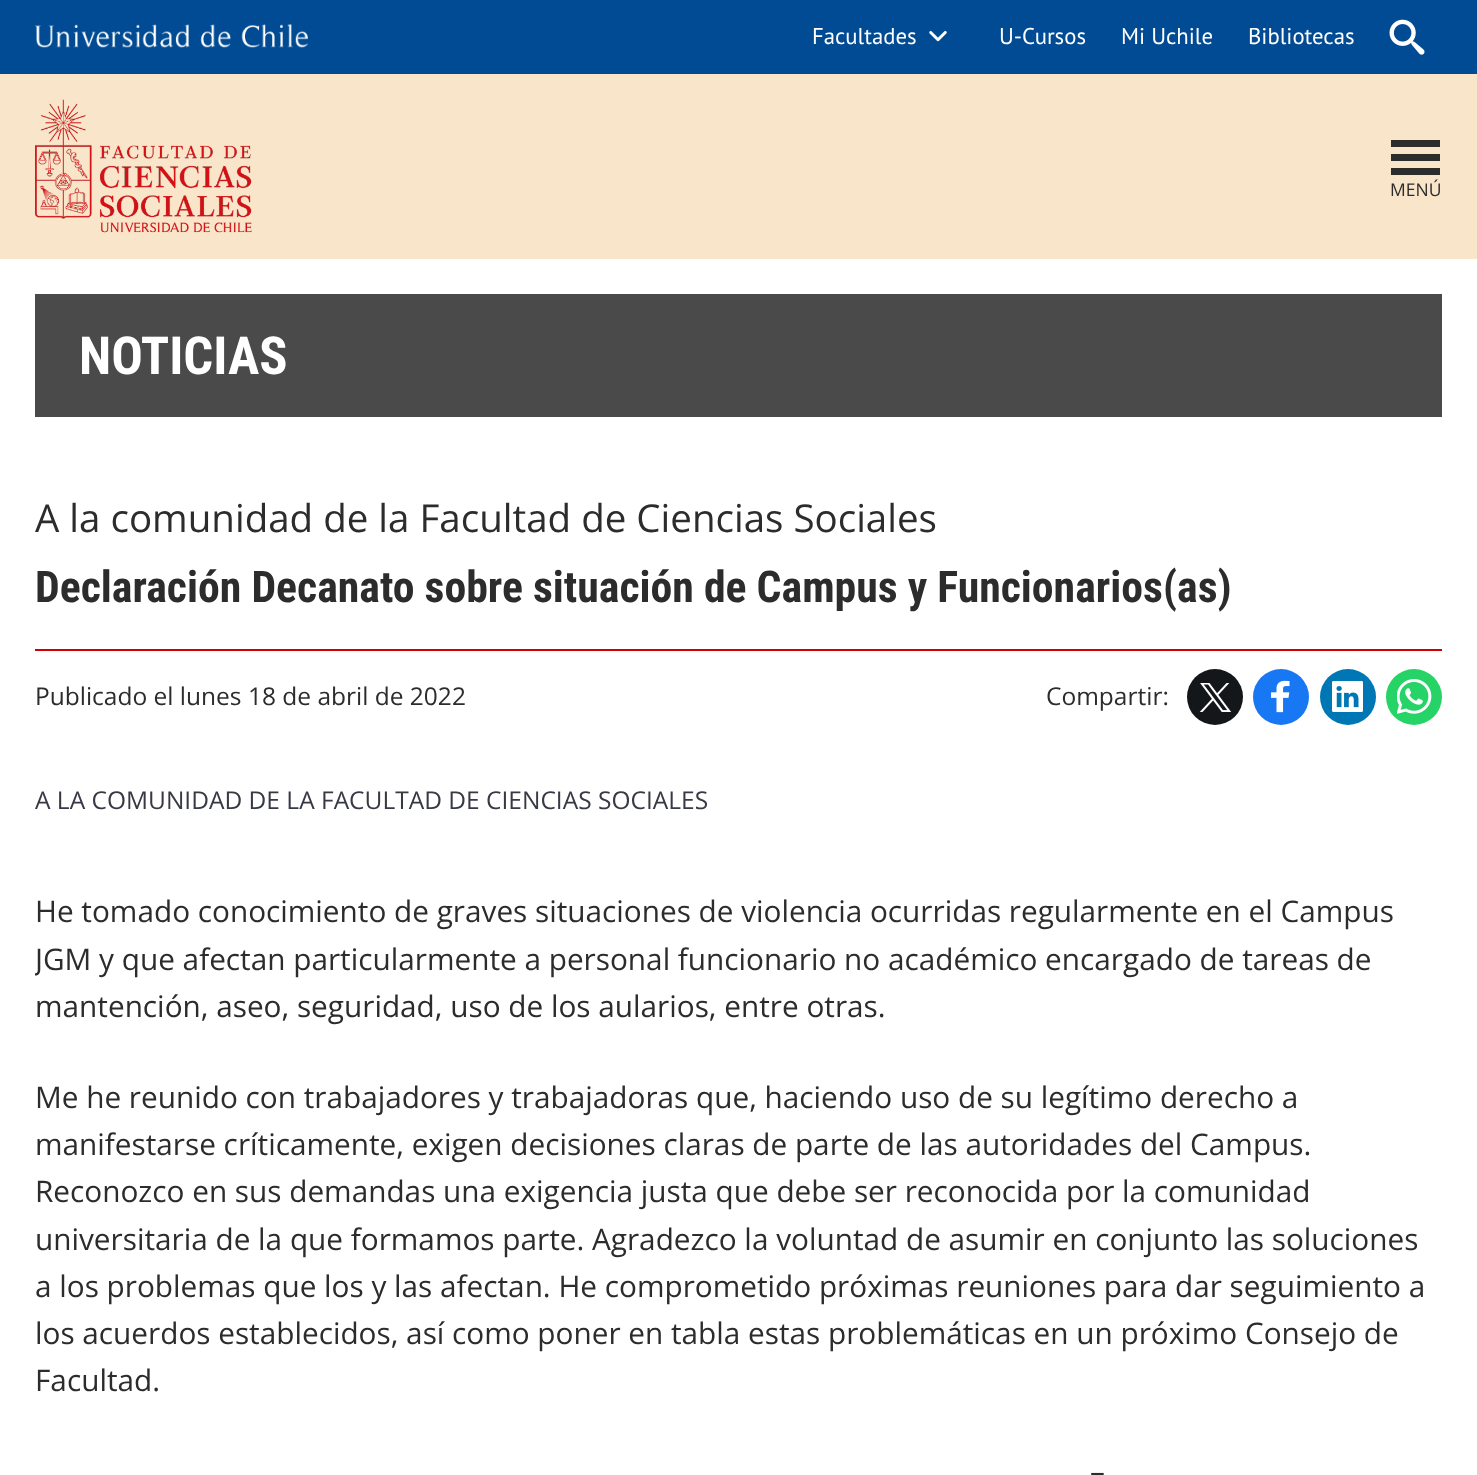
<!DOCTYPE html>
<meta charset="utf-8">
<style>body { margin: 0 } canvas { display: block }</style>
<canvas id="canvas" width="1477" height="1475"></canvas>
<img id="img1" src="images/1.png" hidden>
<img id="img2" src="images/2.png" hidden>
<img id="img3" src="images/3.png" hidden>
<img id="img4" src="images/4.png" hidden>
<img id="img5" src="images/5.png" hidden>
<img id="img6" src="images/6.png" hidden>
<img id="img7" src="images/7.png" hidden>
<img id="img8" src="images/8.png" hidden>
<script>
window.onload = function () {
    const canvas = document.getElementById('canvas');
    const context = canvas.getContext('2d');
    context.miterLimit = 4;
    context.fontKerning = 'normal';

    context.fillStyle = 'rgb(255, 255, 255)';
    context.fillRect(0, 0, 1477, 1475);
    context.fillStyle = 'rgb(249, 229, 202)';
    context.fillRect(0, 74, 1477, 185);
    context.fillStyle = 'rgb(0, 75, 147)';
    context.fillRect(0, 0, 1477, 74);
    context.drawImage(document.getElementById('img1'), 35, 24, 273, 24);
    context.drawImage(document.getElementById('img2'), 929, 31, 18, 11);
    context.drawImage(document.getElementById('img3'), 1389, 19, 36, 36);
    context.drawImage(document.getElementById('img4'), 35, 99, 217, 134);
    context.fillStyle = 'rgb(44, 44, 44)';
    context.fillRect(1391, 140, 49, 7);
    context.fillRect(1391, 154, 49, 7);
    context.fillRect(1391, 168, 49, 7);
    context.fillStyle = 'rgb(74, 74, 74)';
    context.fillRect(35, 294, 1407, 123);
    context.fillStyle = 'rgb(208, 0, 0)';
    context.fillRect(35, 649, 1407, 2);
    context.fillStyle = 'rgb(20, 23, 26)';
    context.beginPath();
    context.arc(1215, 697, 28, 0, 2 * Math.PI);
    context.fill();
    context.drawImage(document.getElementById('img5'), 1199, 683, 33, 29);
    context.fillStyle = 'rgb(24, 119, 242)';
    context.beginPath();
    context.arc(1281, 697, 28, 0, 2 * Math.PI);
    context.fill();
    context.drawImage(document.getElementById('img6'), 1271, 680, 19, 33);
    context.fillStyle = 'rgb(0, 119, 181)';
    context.beginPath();
    context.arc(1348, 697, 28, 0, 2 * Math.PI);
    context.fill();
    context.drawImage(document.getElementById('img7'), 1332, 681, 31, 31);
    context.fillStyle = 'rgb(37, 211, 102)';
    context.beginPath();
    context.arc(1414, 697, 28, 0, 2 * Math.PI);
    context.fill();
    context.drawImage(document.getElementById('img8'), 1397, 679, 35, 35);
    context.font = '22.75px PT Sans';
    context.fillStyle = 'rgb(255, 255, 255)';
    context.fillText('Facultades', 812, 44);
    context.fillText('U-Cursos', 999, 44);
    context.fillText('Mi Uchile', 1121, 44);
    context.fillText('Bibliotecas', 1248, 44);
    context.font = '17.5px Open Sans';
    context.fillStyle = 'rgb(44, 44, 44)';
    context.fillText('MENÚ', 1390, 196);
    context.font = 'bold 52.5px Roboto Condensed';
    context.fillStyle = 'rgb(255, 255, 255)';
    context.fillText('NOTICIAS', 79, 374);
    context.font = '38.5px Open Sans';
    context.fillStyle = 'rgb(44, 44, 44)';
    context.fillText('A la comunidad de la Facultad de Ciencias Sociales', 35, 532);
    context.font = 'bold 43.75px Roboto Condensed';
    context.fillText('Declaración Decanato sobre situación de Campus y Funcionarios(as)', 35, 602);
    context.font = '24.5px Open Sans';
    context.fillText('Publicado el lunes 18 de abril de 2022', 35, 705);
    context.fillText('Compartir:', 1046, 705);
    context.fillStyle = 'rgb(55, 57, 68)';
    context.fillText('A LA COMUNIDAD DE LA FACULTAD DE CIENCIAS SOCIALES', 35, 809);
    context.font = '29.75px Open Sans';
    context.fillStyle = 'rgb(44, 44, 44)';
    context.fillText('He tomado conocimiento de graves situaciones de violencia ocurridas regularmente en el Campus', 35, 922);
    context.save();
    context.beginPath();
    context.rect(35, 887, 1407, 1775);
    context.clip();
    context.fillText('JGM y que afectan particularmente a personal funcionario no académico encargado de tareas de', 35, 970);
    context.restore();
    context.fillText('mantención, aseo, seguridad, uso de los aularios, entre otras.', 35, 1017);
    context.fillText('Me he reunido con trabajadores y trabajadoras que, haciendo uso de su legítimo derecho a', 35, 1108);
    context.fillText('manifestarse críticamente, exigen decisiones claras de parte de las autoridades del Campus.', 35, 1155);
    context.fillText('Reconozco en sus demandas una exigencia justa que debe ser reconocida por la comunidad', 35, 1202);
    context.fillText('universitaria de la que formamos parte. Agradezco la voluntad de asumir en conjunto las soluciones', 35, 1250);
    context.fillText('a los problemas que los y las afectan. He comprometido próximas reuniones para dar seguimiento a', 35, 1297);
    context.fillText('los acuerdos establecidos, así como poner en tabla estas problemáticas en un próximo Consejo de', 35, 1344);
    context.fillText('Facultad.', 35, 1391);
    context.fillText('–', 1090, 1482);
};
</script>
